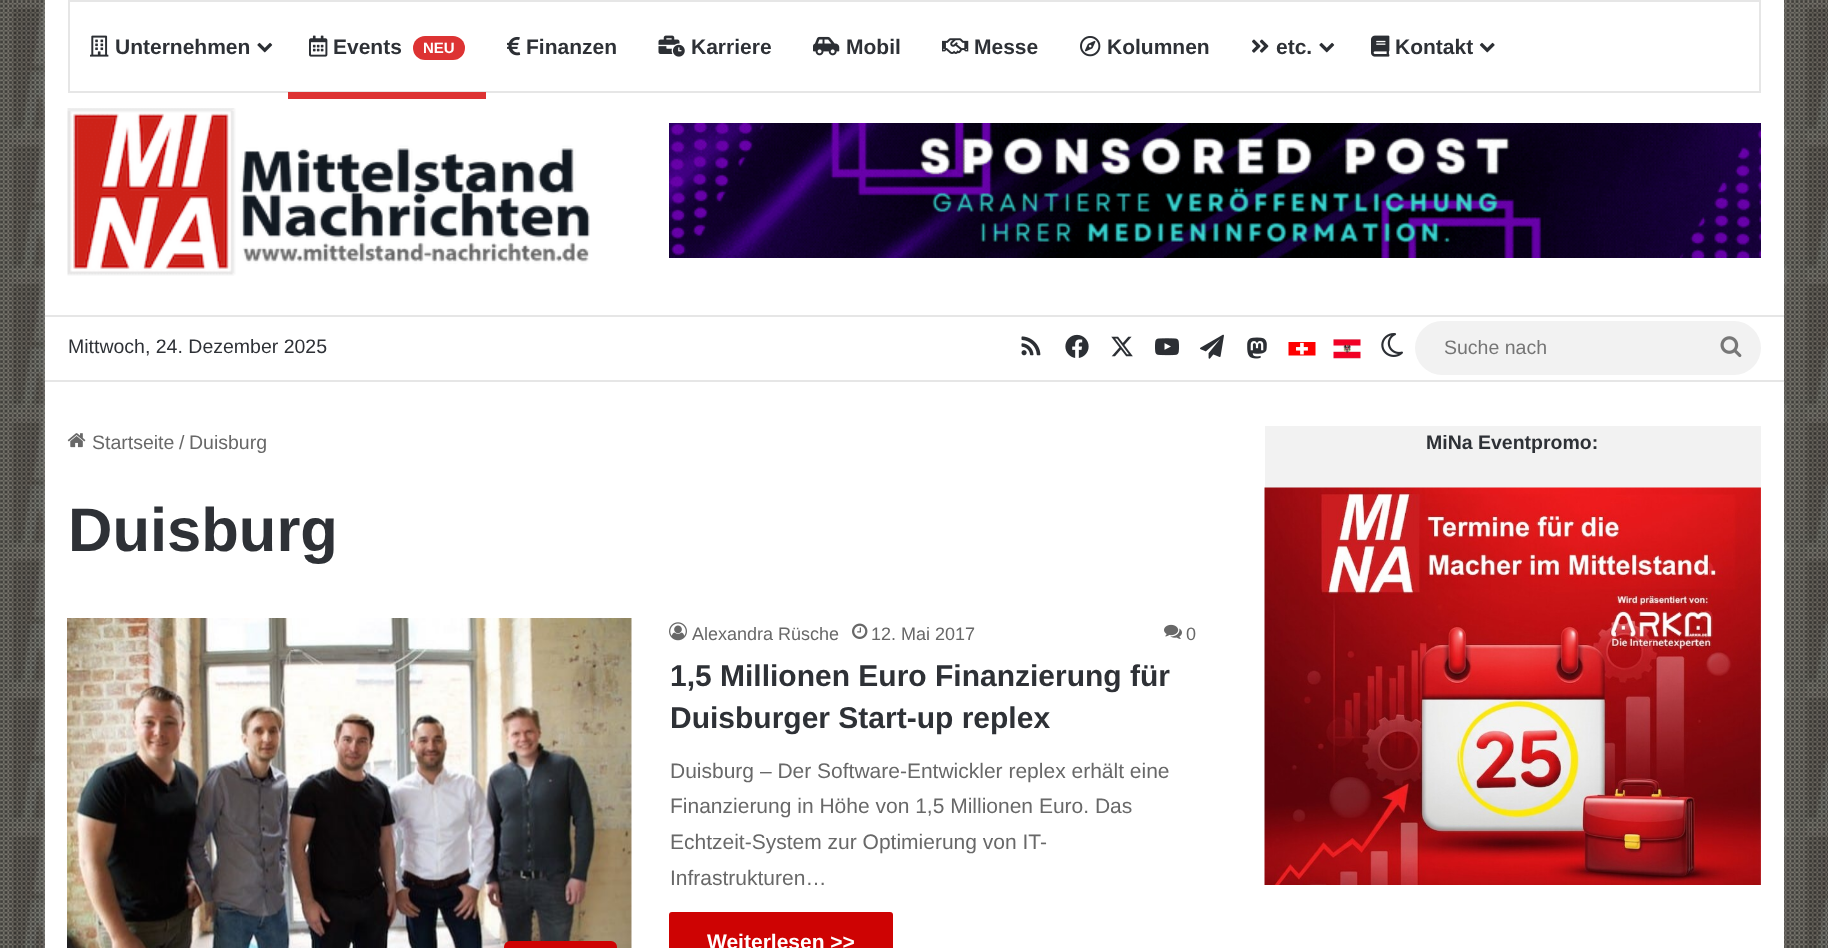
<!DOCTYPE html>
<meta charset="utf-8">
<style>body { margin: 0 } canvas { display: block }</style>
<canvas id="canvas" width="1828" height="948"></canvas>
<img id="img1" src="images/1.png" hidden>
<img id="img2" src="images/2.png" hidden>
<img id="img3" src="images/3.png" hidden>
<img id="img4" src="images/4.png" hidden>
<img id="img5" src="images/5.png" hidden>
<img id="img6" src="images/6.png" hidden>
<img id="img7" src="images/7.png" hidden>
<img id="img8" src="images/8.png" hidden>
<img id="img9" src="images/9.png" hidden>
<img id="img10" src="images/10.png" hidden>
<img id="img11" src="images/11.png" hidden>
<img id="img12" src="images/12.png" hidden>
<img id="img13" src="images/13.png" hidden>
<img id="img14" src="images/14.png" hidden>
<img id="img15" src="images/15.png" hidden>
<img id="img16" src="images/16.png" hidden>
<img id="img17" src="images/17.png" hidden>
<img id="img18" src="images/18.png" hidden>
<img id="img19" src="images/19.png" hidden>
<img id="img20" src="images/20.png" hidden>
<img id="img21" src="images/21.png" hidden>
<img id="img22" src="images/22.png" hidden>
<img id="img23" src="images/23.png" hidden>
<img id="img24" src="images/24.png" hidden>
<img id="img25" src="images/25.png" hidden>
<img id="img26" src="images/26.png" hidden>
<img id="img27" src="images/27.png" hidden>
<img id="img28" src="images/28.png" hidden>
<img id="img29" src="images/29.png" hidden>
<img id="img30" src="images/30.png" hidden>
<img id="img31" src="images/31.png" hidden>
<script>
window.onload = function () {
    const canvas = document.getElementById('canvas');
    const context = canvas.getContext('2d');
    context.miterLimit = 4;
    context.fontKerning = 'normal';

    context.fillStyle = 'rgb(255, 255, 255)';
    context.fillRect(0, 0, 1828, 948);
    context.drawImage(document.getElementById('img1'), 0, 0, 1828, 948);
    context.drawImage(document.getElementById('img2'), 0, 0, 1828, 948);
    context.fillStyle = 'rgba(171, 171, 171, 0.5)';
    context.filter = 'blur(5px)';
    context.beginPath();
    context.rect(45, 2, 1739, 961);
    context.fill();
    context.filter = 'none';
    context.fillStyle = 'rgb(255, 255, 255)';
    context.fillRect(45, 0, 1739, 948);
    context.strokeStyle = 'rgb(230, 230, 230)';
    context.lineWidth = 2;
    context.strokeRect(69, 1, 1691, 91);
    context.drawImage(document.getElementById('img3'), 90, 35, 19, 22);
    context.drawImage(document.getElementById('img4'), 257, 42, 16, 11);
    context.fillStyle = 'rgb(221, 51, 51)';
    context.fillRect(288, 92, 198, 7);
    context.drawImage(document.getElementById('img5'), 309, 35, 19, 22);
    context.beginPath();
    context.roundRect(413, 36, 52, 24, 12);
    context.fill();
    context.drawImage(document.getElementById('img6'), 507, 36, 14, 20);
    context.drawImage(document.getElementById('img7'), 658, 35, 27, 22);
    context.drawImage(document.getElementById('img8'), 813, 36, 27, 20);
    context.drawImage(document.getElementById('img9'), 942, 38, 27, 16);
    context.drawImage(document.getElementById('img10'), 1080, 36, 21, 21);
    context.drawImage(document.getElementById('img11'), 1252, 39, 17, 14);
    context.drawImage(document.getElementById('img4'), 1319, 42, 16, 11);
    context.drawImage(document.getElementById('img12'), 1371, 35, 19, 22);
    context.drawImage(document.getElementById('img13'), 1479, 42, 16, 11);
    context.drawImage(document.getElementById('img14'), 67, 108, 523, 168);
    context.drawImage(document.getElementById('img15'), 669, 123, 1092, 135);
    context.fillStyle = 'rgb(230, 230, 230)';
    context.fillRect(45, 315, 1739, 2);
    context.fillRect(45, 380, 1739, 2);
    context.drawImage(document.getElementById('img16'), 1021, 336, 20, 20);
    context.drawImage(document.getElementById('img17'), 1065, 334, 24, 24);
    context.drawImage(document.getElementById('img18'), 1111, 336, 22, 21);
    context.drawImage(document.getElementById('img19'), 1155, 338, 24, 18);
    context.drawImage(document.getElementById('img20'), 1200, 334, 24, 25);
    context.drawImage(document.getElementById('img21'), 1247, 337, 20, 22);
    context.drawImage(document.getElementById('img22'), 1288, 342, 28, 14);
    context.drawImage(document.getElementById('img23'), 1333, 339, 28, 20);
    context.drawImage(document.getElementById('img24'), 1381, 333, 22, 24);
    context.fillStyle = 'rgb(242, 242, 242)';
    context.beginPath();
    context.roundRect(1415, 321, 346, 54, 27);
    context.fill();
    context.drawImage(document.getElementById('img25'), 1720, 336, 22, 22);
    context.drawImage(document.getElementById('img26'), 67, 433, 19, 15);
    context.drawImage(document.getElementById('img27'), 67, 618, 565, 330);
    context.fillStyle = 'rgb(206, 3, 3)';
    context.beginPath();
    context.roundRect(504, 941, 113, 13, 6);
    context.fill();
    context.drawImage(document.getElementById('img28'), 669, 622, 18, 19);
    context.drawImage(document.getElementById('img29'), 852, 623, 16, 16);
    context.drawImage(document.getElementById('img30'), 1164, 624, 18, 15);
    context.beginPath();
    context.roundRect(669, 912, 224, 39, 3);
    context.fill();
    context.fillStyle = 'rgb(242, 242, 242)';
    context.fillRect(1265, 426, 496, 459);
    context.drawImage(document.getElementById('img31'), 1264, 487, 497, 398);
    context.font = 'bold 21px Liberation Sans';
    context.fillStyle = 'rgb(46, 49, 54)';
    context.fillText('Unternehmen', 115, 54);
    context.fillText('Events', 333, 54);
    context.font = 'bold 15px Liberation Sans';
    context.fillStyle = 'rgb(255, 255, 255)';
    context.fillText('NEU', 423, 53);
    context.font = 'bold 21px Liberation Sans';
    context.fillStyle = 'rgb(46, 49, 54)';
    context.fillText('Finanzen', 526, 54);
    context.fillText('Karriere', 691, 54);
    context.fillText('Mobil', 846, 54);
    context.fillText('Messe', 974, 54);
    context.fillText('Kolumnen', 1107, 54);
    context.fillText('etc.', 1276, 54);
    context.fillText('Kontakt', 1395, 54);
    context.font = '19.5px Liberation Sans';
    context.fillText('Mittwoch, 24. Dezember 2025', 68, 353);
    context.fillStyle = 'rgb(117, 117, 117)';
    context.fillText('Suche nach', 1444, 354);
    context.fillStyle = 'rgb(104, 104, 104)';
    context.fillText('Startseite', 92, 449);
    context.fillText('/', 179, 449);
    context.fillText('Duisburg', 189, 449);
    context.font = 'bold 61.5px Liberation Sans';
    context.fillStyle = 'rgb(46, 49, 54)';
    context.fillText('Duisburg', 68, 551);
    context.font = '18px Liberation Sans';
    context.fillStyle = 'rgb(104, 104, 104)';
    context.fillText('Alexandra Rüsche', 692, 640);
    context.fillText('12. Mai 2017', 871, 640);
    context.fillText('0', 1186, 640);
    context.font = 'bold 30px Liberation Sans';
    context.fillStyle = 'rgb(46, 49, 54)';
    context.fillText('1,5 Millionen Euro Finanzierung für', 670, 686);
    context.fillText('Duisburger Start-up replex', 670, 728);
    context.font = '21px Liberation Sans';
    context.fillStyle = 'rgb(104, 104, 104)';
    context.fillText('Duisburg – Der Software-Entwickler replex erhält eine', 670, 778);
    context.fillText('Finanzierung in Höhe von 1,5 Millionen Euro. Das', 670, 813);
    context.fillText('Echtzeit-System zur Optimierung von IT-', 670, 849);
    context.fillText('Infrastrukturen…', 670, 885);
    context.font = 'bold 21px Liberation Sans';
    context.fillStyle = 'rgb(255, 255, 255)';
    context.fillText('Weiterlesen >>', 707, 949);
    context.font = 'bold 19.5px Liberation Sans';
    context.fillStyle = 'rgb(46, 49, 54)';
    context.fillText('MiNa Eventpromo:', 1426, 449);
};
</script>
